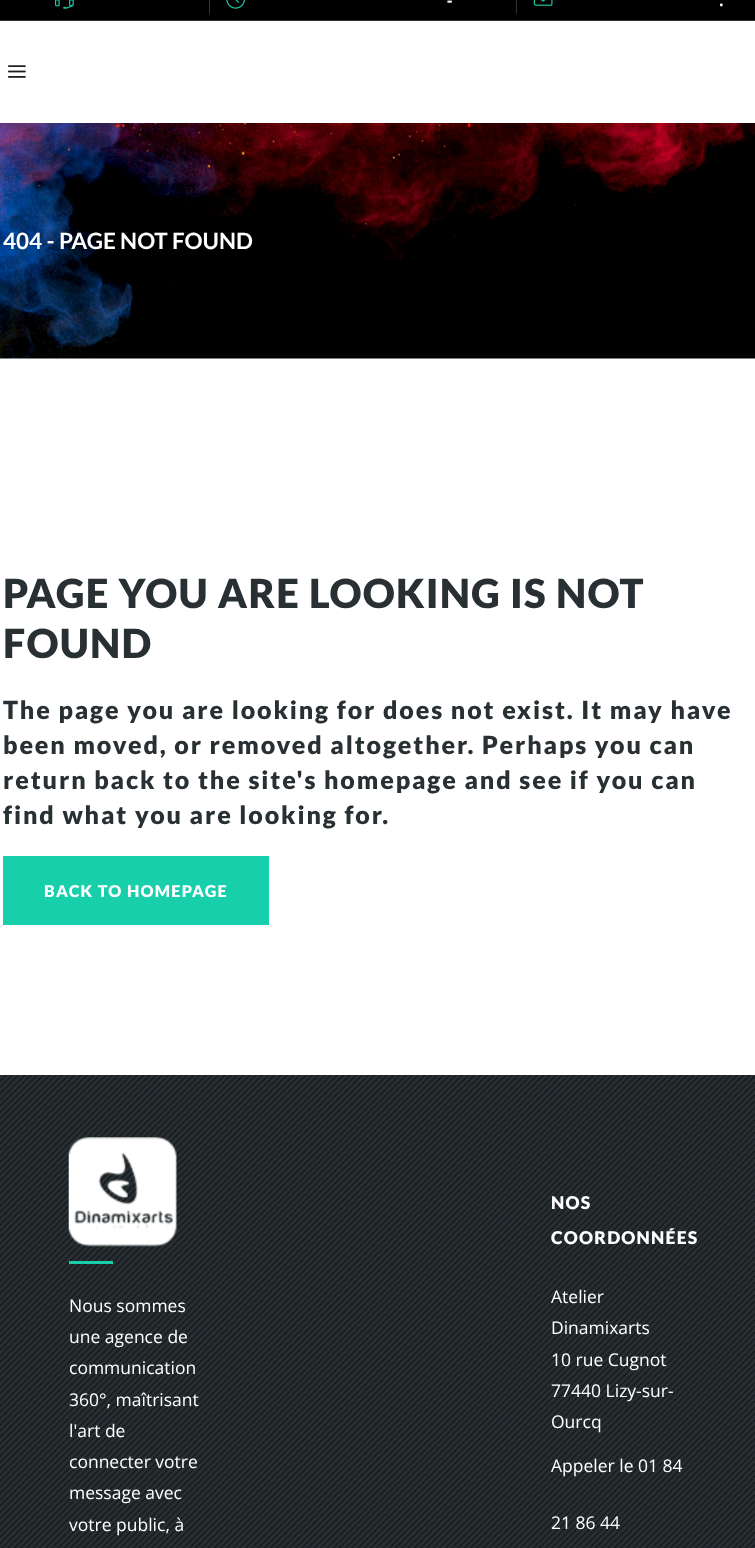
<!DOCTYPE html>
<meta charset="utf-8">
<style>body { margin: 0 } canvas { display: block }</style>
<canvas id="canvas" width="755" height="1548"></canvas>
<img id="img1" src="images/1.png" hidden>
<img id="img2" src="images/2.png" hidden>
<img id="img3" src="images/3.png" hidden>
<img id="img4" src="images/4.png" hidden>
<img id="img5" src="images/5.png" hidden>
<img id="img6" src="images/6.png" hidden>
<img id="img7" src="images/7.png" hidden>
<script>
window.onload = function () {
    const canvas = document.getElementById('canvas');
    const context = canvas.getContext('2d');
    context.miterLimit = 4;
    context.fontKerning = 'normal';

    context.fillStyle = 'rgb(255, 255, 255)';
    context.fillRect(0, 0, 755, 1548);
    context.fillStyle = 'rgb(0, 0, 0)';
    context.fillRect(0, 0, 755, 20);
    context.fillStyle = 'rgb(50, 50, 50)';
    context.fillRect(0, 20, 755, 1);
    context.drawImage(document.getElementById('img1'), 55, 0, 19, 9);
    context.fillStyle = 'rgb(51, 51, 51)';
    context.fillRect(209, 0, 1, 14);
    context.drawImage(document.getElementById('img2'), 226, 0, 19, 9);
    context.fillRect(516, 0, 1, 14);
    context.drawImage(document.getElementById('img3'), 533, 0, 20, 6);
    context.drawImage(document.getElementById('img4'), 7, 65, 19, 13);
    context.drawImage(document.getElementById('img5'), 0, 123, 755, 236);
    context.fillStyle = 'rgb(24, 207, 171)';
    context.fillRect(3, 856, 266, 69);
    context.drawImage(document.getElementById('img6'), 0, 1075, 755, 473);
    context.drawImage(document.getElementById('img7'), 68, 1137, 109, 110);
    context.fillRect(69, 1261, 44, 3);
    context.font = 'bold 16.25px Open Sans';
    context.fillStyle = 'rgb(255, 255, 255)';
    context.fillText('-', 447, 6);
    context.fillText('.', 719, 6);
    context.font = 'bold 22.5px Lato';
    context.fillText('404 - PAGE NOT FOUND', 3, 249);
    context.letterSpacing = '1.25px';
    context.font = '900 40px Lato';
    context.fillStyle = 'rgb(40, 48, 51)';
    context.fillText('PAGE YOU ARE LOOKING IS NOT', 3, 608);
    context.fillText('FOUND', 3, 658);
    context.letterSpacing = '1.88px';
    context.font = '900 25px Lato';
    context.fillText('The page you are looking for does not exist. It may have', 3, 719);
    context.fillText('been moved, or removed altogether. Perhaps you can', 3, 754);
    context.fillText('return back to the site\'s homepage and see if you can', 3, 789);
    context.fillText('find what you are looking for.', 3, 824);
    context.letterSpacing = '1.25px';
    context.font = '900 16.25px Lato';
    context.fillStyle = 'rgb(255, 255, 255)';
    context.fillText('BACK TO HOMEPAGE', 44, 897);
    context.letterSpacing = '0px';
    context.font = '17.5px Open Sans';
    context.fillText('Nous sommes', 69, 1312);
    context.fillText('une agence de', 69, 1343);
    context.fillText('communication', 69, 1374);
    context.fillText('360°, maîtrisant', 69, 1406);
    context.fillText('l\'art de', 69, 1437);
    context.fillText('connecter votre', 69, 1468);
    context.fillText('message avec', 69, 1499);
    context.fillText('votre public, à', 69, 1531);
    context.letterSpacing = '1.25px';
    context.font = '900 17.5px Lato';
    context.fillText('NOS', 551, 1209);
    context.fillText('COORDONNÉES', 551, 1244);
    context.letterSpacing = '0px';
    context.font = '17.5px Open Sans';
    context.fillText('Atelier', 551, 1303);
    context.fillText('Dinamixarts', 551, 1334);
    context.fillText('10 rue Cugnot', 551, 1366);
    context.fillText('77440 Lizy-sur-', 551, 1397);
    context.fillText('Ourcq', 551, 1428);
    context.fillText('Appeler le 01 84', 551, 1472);
    context.fillText('21 86 44', 551, 1529);
};
</script>
